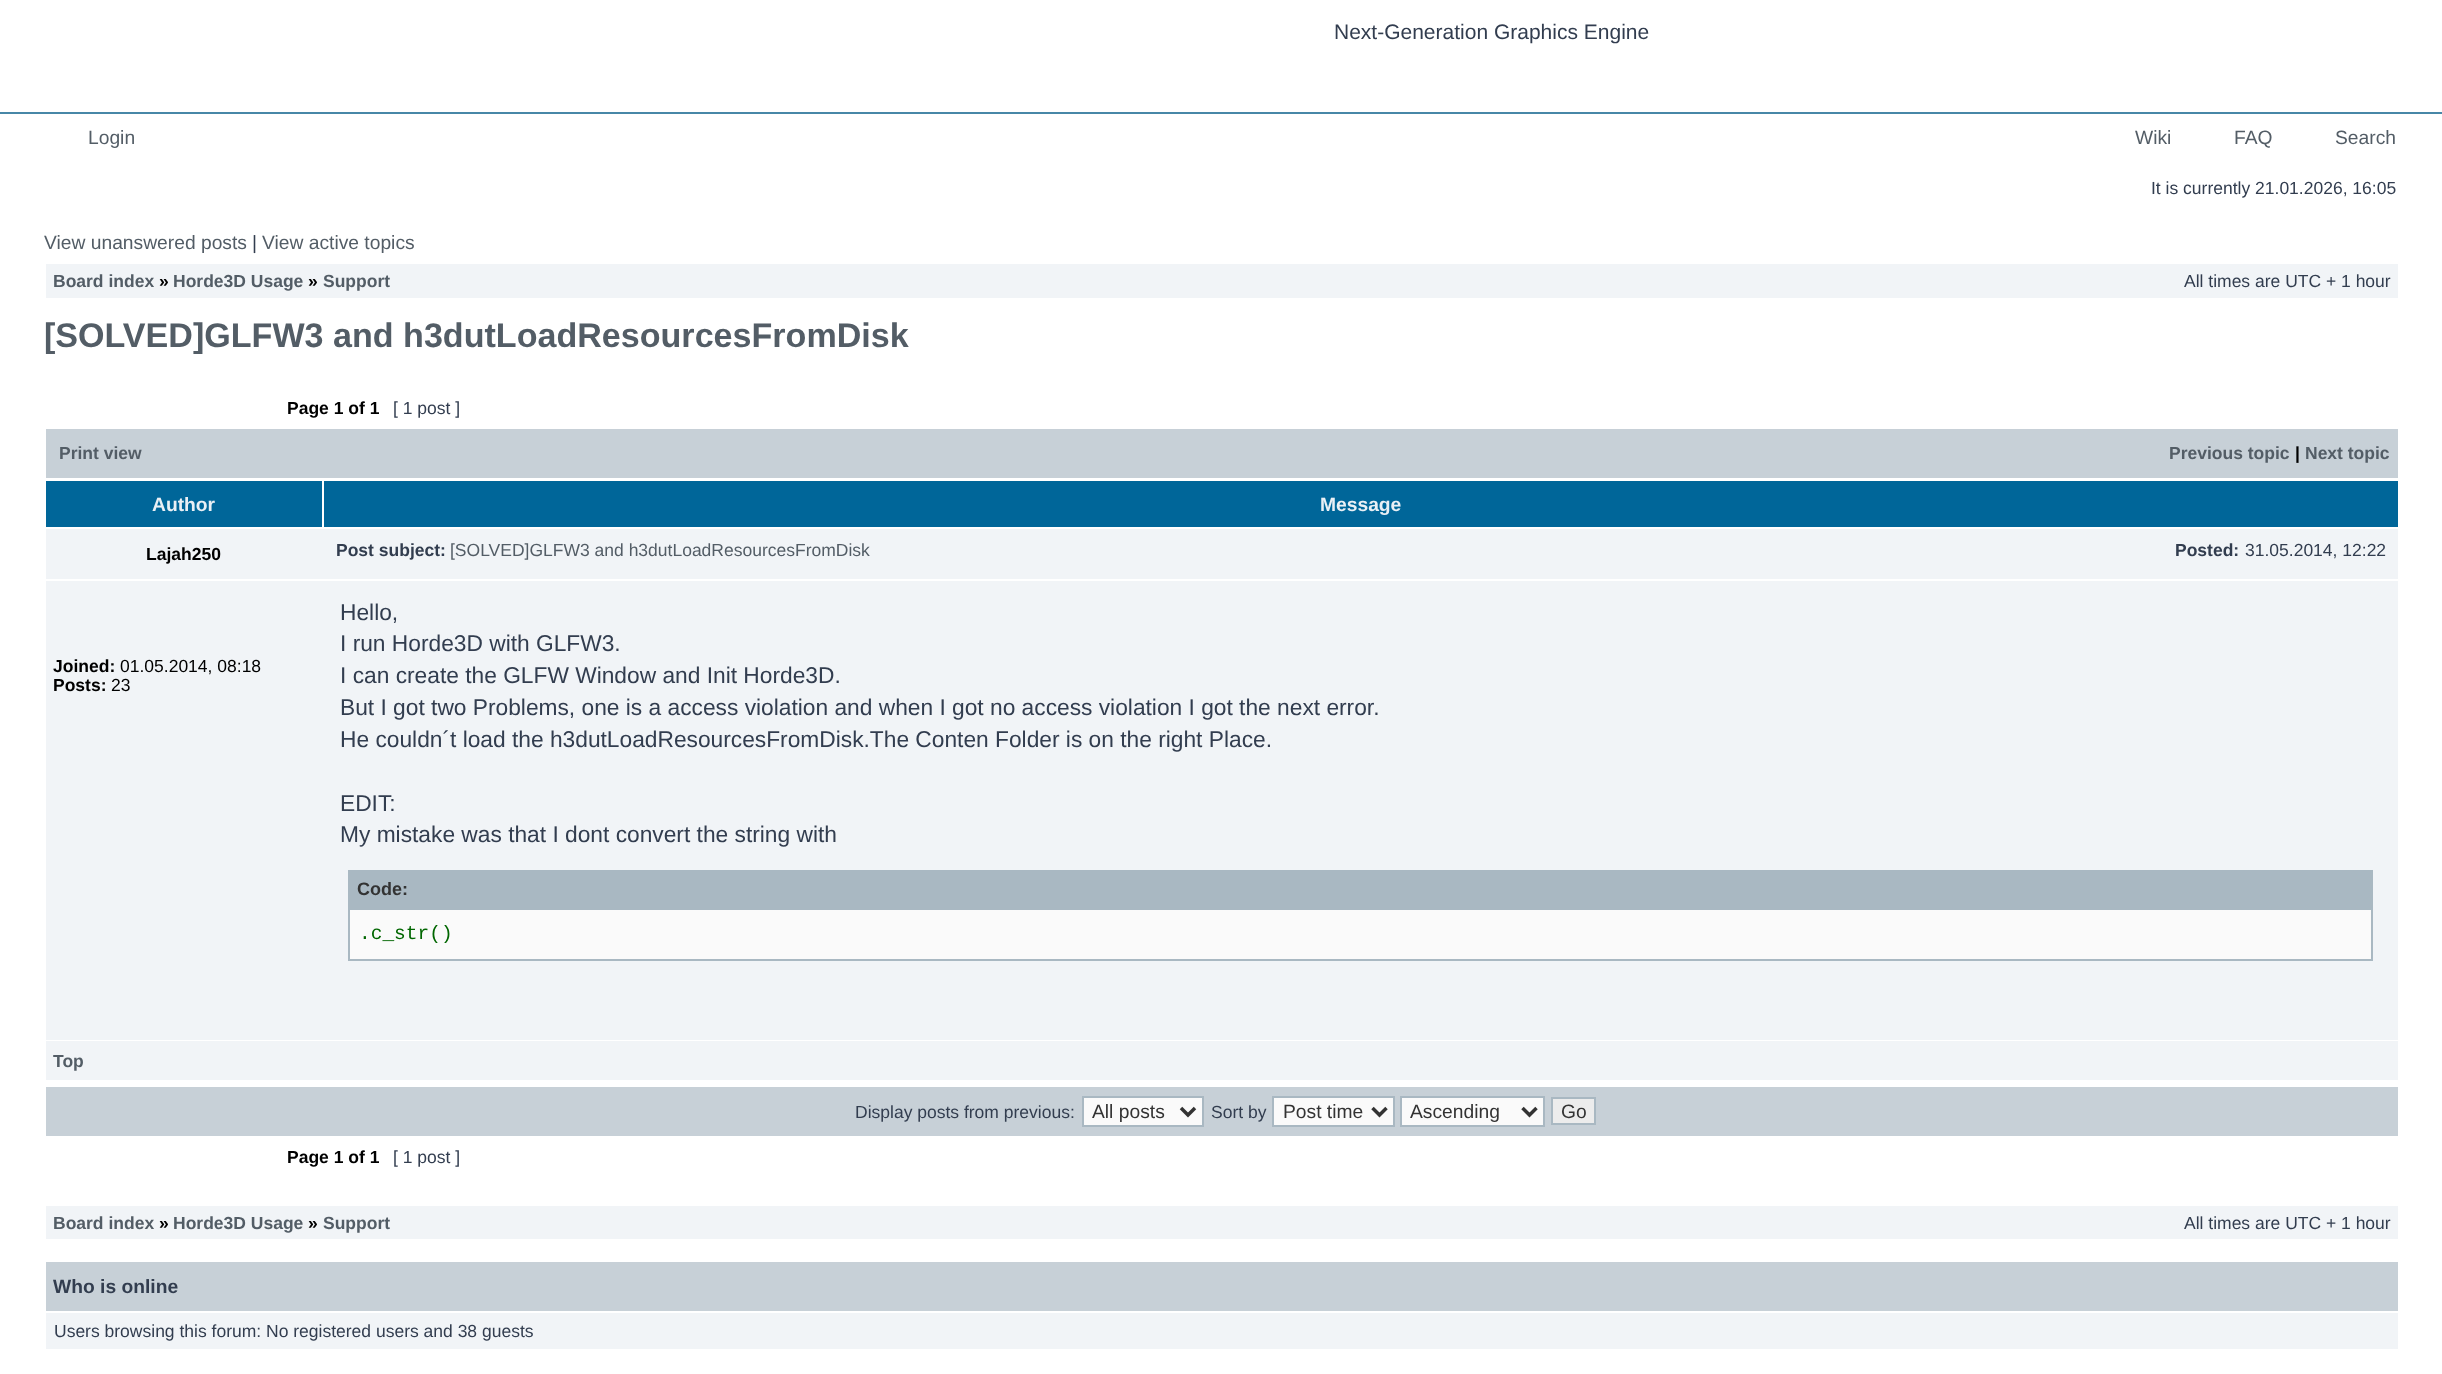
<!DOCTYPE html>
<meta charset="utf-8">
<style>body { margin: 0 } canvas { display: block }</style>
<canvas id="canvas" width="2442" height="1374"></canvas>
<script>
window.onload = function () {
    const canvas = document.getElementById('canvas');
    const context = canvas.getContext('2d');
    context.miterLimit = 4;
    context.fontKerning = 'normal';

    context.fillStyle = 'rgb(255, 255, 255)';
    context.fillRect(0, 0, 2442, 1374);
    context.fillStyle = 'rgb(71, 135, 167)';
    context.fillRect(0, 112, 2442, 2);
    context.fillStyle = 'rgb(241, 244, 247)';
    context.fillRect(46, 264, 2352, 34);
    context.fillStyle = 'rgb(199, 208, 215)';
    context.fillRect(46, 429, 2352, 49);
    context.fillStyle = 'rgb(0, 102, 153)';
    context.fillRect(46, 481, 276, 46);
    context.fillRect(324, 481, 2074, 46);
    context.fillStyle = 'rgb(241, 244, 247)';
    context.fillRect(46, 529, 2352, 50);
    context.fillRect(46, 581, 2352, 459);
    context.fillStyle = 'rgb(169, 184, 194)';
    context.fillRect(350, 872, 2021, 38);
    context.fillRect(348, 870, 2025, 2);
    context.fillRect(2371, 870, 2, 91);
    context.fillRect(348, 870, 2, 40);
    context.fillStyle = 'rgb(250, 250, 250)';
    context.fillRect(350, 910, 2021, 49);
    context.fillStyle = 'rgb(169, 184, 194)';
    context.fillRect(348, 959, 2025, 2);
    context.fillRect(348, 910, 2, 51);
    context.fillStyle = 'rgb(241, 244, 247)';
    context.fillRect(46, 1041, 2352, 39);
    context.fillStyle = 'rgb(199, 208, 215)';
    context.fillRect(46, 1087, 2352, 49);
    context.fillStyle = 'rgb(250, 250, 250)';
    context.beginPath();
    context.rect(1083, 1097, 120, 29);
    context.fill();
    context.strokeStyle = 'rgb(169, 184, 194)';
    context.lineWidth = 2;
    context.stroke();
    context.beginPath();
    context.moveTo(1181, 1108);
    context.lineTo(1188, 1115);
    context.lineTo(1195, 1108);
    context.strokeStyle = 'rgb(51, 51, 51)';
    context.lineWidth = 3.5;
    context.stroke();
    context.beginPath();
    context.rect(1273, 1097, 121, 29);
    context.fill();
    context.strokeStyle = 'rgb(169, 184, 194)';
    context.lineWidth = 2;
    context.stroke();
    context.beginPath();
    context.moveTo(1372.5, 1108);
    context.lineTo(1379.5, 1115);
    context.lineTo(1386.5, 1108);
    context.strokeStyle = 'rgb(51, 51, 51)';
    context.lineWidth = 3.5;
    context.stroke();
    context.beginPath();
    context.rect(1401, 1097, 143, 29);
    context.fill();
    context.strokeStyle = 'rgb(169, 184, 194)';
    context.lineWidth = 2;
    context.stroke();
    context.beginPath();
    context.moveTo(1522.5, 1108);
    context.lineTo(1529.5, 1115);
    context.lineTo(1536.5, 1108);
    context.strokeStyle = 'rgb(51, 51, 51)';
    context.lineWidth = 3.5;
    context.stroke();
    context.fillStyle = 'rgb(236, 236, 236)';
    context.beginPath();
    context.rect(1552, 1098, 43, 26);
    context.fill();
    context.strokeStyle = 'rgb(169, 184, 194)';
    context.lineWidth = 2;
    context.stroke();
    context.fillStyle = 'rgb(241, 244, 247)';
    context.fillRect(46, 1206, 2352, 33);
    context.fillStyle = 'rgb(199, 208, 215)';
    context.fillRect(46, 1262, 2352, 49);
    context.fillStyle = 'rgb(241, 244, 247)';
    context.fillRect(46, 1313, 2352, 36);
    context.font = '21px Liberation Sans';
    context.fillStyle = 'rgb(50, 61, 79)';
    context.fillText('Next-Generation Graphics Engine', 1334, 39);
    context.font = '19.25px Liberation Sans';
    context.fillStyle = 'rgb(83, 93, 102)';
    context.fillText('Login', 88, 144);
    context.fillText('Wiki', 2135, 144);
    context.fillText('FAQ', 2234, 144);
    context.fillText('Search', 2335, 144);
    context.font = '17.5px Liberation Sans';
    context.fillStyle = 'rgb(50, 61, 79)';
    context.fillText('It is currently 21.01.2026, 16:05', 2151, 194);
    context.font = '19.25px Liberation Sans';
    context.fillStyle = 'rgb(83, 93, 102)';
    context.fillText('View unanswered posts', 44, 249);
    context.fillStyle = 'rgb(50, 61, 79)';
    context.fillText('|', 252, 249);
    context.fillStyle = 'rgb(83, 93, 102)';
    context.fillText('View active topics', 262, 249);
    context.font = 'bold 17.5px Liberation Sans';
    context.fillText('Board index', 53, 287);
    context.fillStyle = 'rgb(0, 0, 0)';
    context.fillText('»', 159, 287);
    context.fillStyle = 'rgb(83, 93, 102)';
    context.fillText('Horde3D Usage', 173, 287);
    context.fillStyle = 'rgb(0, 0, 0)';
    context.fillText('»', 308, 287);
    context.fillStyle = 'rgb(83, 93, 102)';
    context.fillText('Support', 323, 287);
    context.font = '17.5px Liberation Sans';
    context.fillStyle = 'rgb(50, 61, 79)';
    context.fillText('All times are UTC + 1 hour', 2184, 287);
    context.font = 'bold 34.1px Liberation Sans';
    context.fillStyle = 'rgb(83, 93, 102)';
    context.fillText('[SOLVED]GLFW3 and h3dutLoadResourcesFromDisk', 44, 347);
    context.font = 'bold 17.5px Liberation Sans';
    context.fillStyle = 'rgb(0, 0, 0)';
    context.fillText('Page 1 of 1', 287, 414);
    context.font = '17.5px Liberation Sans';
    context.fillStyle = 'rgb(50, 61, 79)';
    context.fillText('[ 1 post ]', 393, 414);
    context.font = 'bold 17.5px Liberation Sans';
    context.fillStyle = 'rgb(83, 93, 102)';
    context.fillText('Print view', 59, 459);
    context.fillText('Previous topic', 2169, 459);
    context.fillStyle = 'rgb(0, 0, 0)';
    context.fillText('|', 2295, 459);
    context.fillStyle = 'rgb(83, 93, 102)';
    context.fillText('Next topic', 2305, 459);
    context.font = 'bold 19.25px Liberation Sans';
    context.fillStyle = 'rgb(234, 240, 245)';
    context.fillText('Author', 152, 511);
    context.fillText('Message', 1320, 511);
    context.font = 'bold 17.5px Liberation Sans';
    context.fillStyle = 'rgb(0, 0, 0)';
    context.fillText('Lajah250', 146, 560);
    context.fillStyle = 'rgb(50, 61, 79)';
    context.fillText('Post subject:', 336, 556);
    context.font = '17.5px Liberation Sans';
    context.fillStyle = 'rgb(83, 93, 102)';
    context.fillText('[SOLVED]GLFW3 and h3dutLoadResourcesFromDisk', 450, 556);
    context.font = 'bold 17.5px Liberation Sans';
    context.fillStyle = 'rgb(50, 61, 79)';
    context.fillText('Posted:', 2175, 556);
    context.font = '17.5px Liberation Sans';
    context.fillText('31.05.2014, 12:22', 2245, 556);
    context.font = 'bold 17.5px Liberation Sans';
    context.fillStyle = 'rgb(0, 0, 0)';
    context.fillText('Joined:', 53, 672);
    context.font = '17.5px Liberation Sans';
    context.fillText('01.05.2014, 08:18', 120, 672);
    context.font = 'bold 17.5px Liberation Sans';
    context.fillText('Posts:', 53, 691);
    context.font = '17.5px Liberation Sans';
    context.fillText('23', 111, 691);
    context.font = '22.75px Liberation Sans';
    context.fillStyle = 'rgb(50, 61, 79)';
    context.fillText('Hello,', 340, 620);
    context.fillText('I run Horde3D with GLFW3.', 340, 651);
    context.fillText('I can create the GLFW Window and Init Horde3D.', 340, 683);
    context.fillText('But I got two Problems, one is a access violation and when I got no access violation I got the next error.', 340, 715);
    context.fillText('He couldn´t load the h3dutLoadResourcesFromDisk.The Conten Folder is on the right Place.', 340, 747);
    context.fillText('EDIT:', 340, 811);
    context.fillText('My mistake was that I dont convert the string with', 340, 842);
    context.font = 'bold 18px Liberation Sans';
    context.fillStyle = 'rgb(51, 51, 51)';
    context.fillText('Code:', 357, 895);
    context.font = '19.5px Liberation Mono';
    context.fillStyle = 'rgb(0, 102, 0)';
    context.fillText('.c_str()', 359, 939);
    context.font = 'bold 17.5px Liberation Sans';
    context.fillStyle = 'rgb(83, 93, 102)';
    context.fillText('Top', 53, 1067);
    context.font = '17.5px Liberation Sans';
    context.fillStyle = 'rgb(50, 61, 79)';
    context.fillText('Display posts from previous:', 855, 1118);
    context.font = '19.25px Liberation Sans';
    context.fillStyle = 'rgb(51, 51, 51)';
    context.fillText('All posts', 1092, 1118);
    context.font = '17.5px Liberation Sans';
    context.fillStyle = 'rgb(50, 61, 79)';
    context.fillText('Sort by', 1211, 1118);
    context.font = '19.25px Liberation Sans';
    context.fillStyle = 'rgb(51, 51, 51)';
    context.fillText('Post time', 1283, 1118);
    context.fillText('Ascending', 1410, 1118);
    context.fillText('Go', 1561, 1118);
    context.font = 'bold 17.5px Liberation Sans';
    context.fillStyle = 'rgb(0, 0, 0)';
    context.fillText('Page 1 of 1', 287, 1163);
    context.font = '17.5px Liberation Sans';
    context.fillStyle = 'rgb(50, 61, 79)';
    context.fillText('[ 1 post ]', 393, 1163);
    context.font = 'bold 17.5px Liberation Sans';
    context.fillStyle = 'rgb(83, 93, 102)';
    context.fillText('Board index', 53, 1229);
    context.fillStyle = 'rgb(0, 0, 0)';
    context.fillText('»', 159, 1229);
    context.fillStyle = 'rgb(83, 93, 102)';
    context.fillText('Horde3D Usage', 173, 1229);
    context.fillStyle = 'rgb(0, 0, 0)';
    context.fillText('»', 308, 1229);
    context.fillStyle = 'rgb(83, 93, 102)';
    context.fillText('Support', 323, 1229);
    context.font = '17.5px Liberation Sans';
    context.fillStyle = 'rgb(50, 61, 79)';
    context.fillText('All times are UTC + 1 hour', 2184, 1229);
    context.font = 'bold 19.25px Liberation Sans';
    context.fillText('Who is online', 53, 1293);
    context.font = '17.5px Liberation Sans';
    context.fillText('Users browsing this forum: No registered users and 38 guests', 54, 1337);
};
</script>
